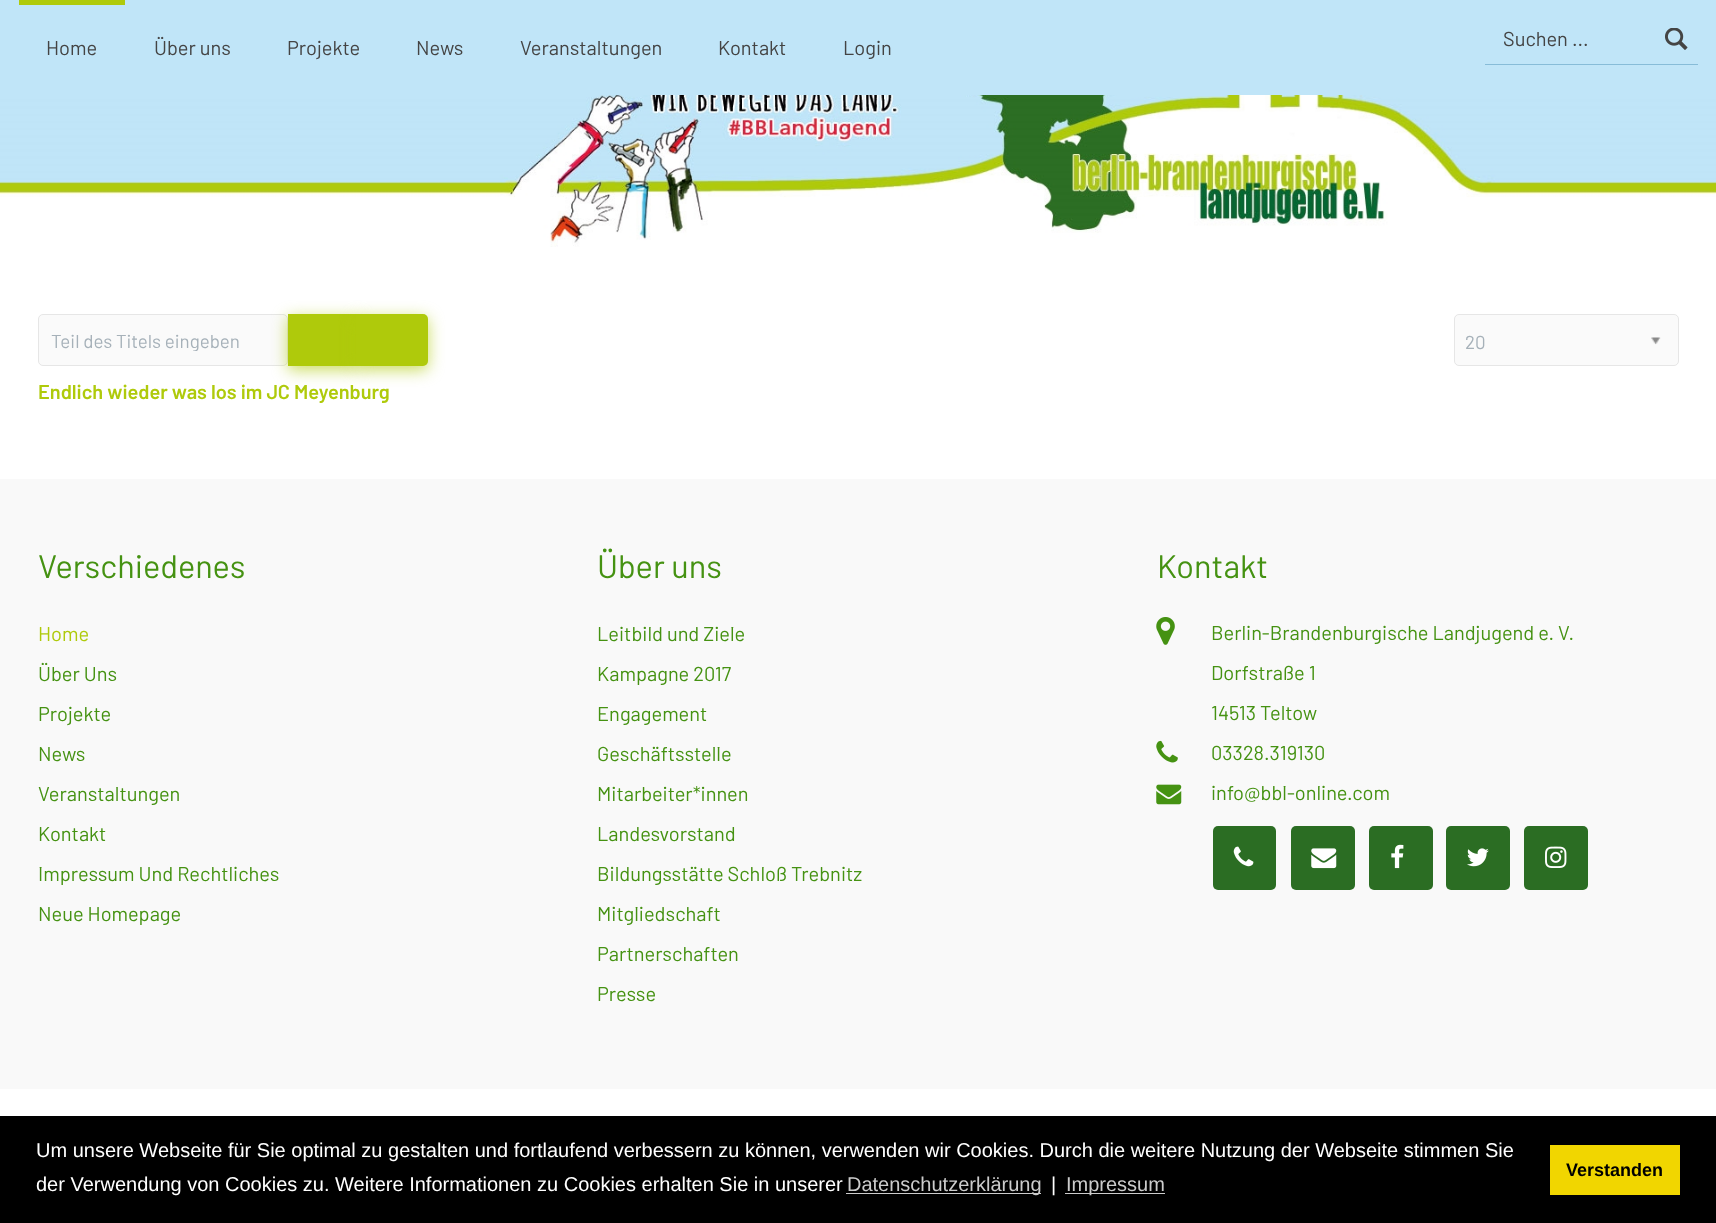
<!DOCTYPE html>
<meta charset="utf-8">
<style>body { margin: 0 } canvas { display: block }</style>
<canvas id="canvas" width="1716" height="1223"></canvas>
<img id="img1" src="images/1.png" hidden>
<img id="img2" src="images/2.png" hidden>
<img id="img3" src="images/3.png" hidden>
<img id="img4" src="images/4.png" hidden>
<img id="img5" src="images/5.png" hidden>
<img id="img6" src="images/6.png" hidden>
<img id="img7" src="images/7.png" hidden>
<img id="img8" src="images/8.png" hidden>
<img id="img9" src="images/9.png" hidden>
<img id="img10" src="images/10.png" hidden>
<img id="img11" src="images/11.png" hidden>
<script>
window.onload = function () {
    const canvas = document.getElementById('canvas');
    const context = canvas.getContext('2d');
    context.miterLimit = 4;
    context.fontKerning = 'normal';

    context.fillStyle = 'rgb(255, 255, 255)';
    context.fillRect(0, 0, 1716, 1223);
    context.fillStyle = 'rgb(192, 229, 248)';
    context.fillRect(0, 0, 1716, 95);
    context.fillStyle = 'rgb(175, 202, 11)';
    context.fillRect(19, 0, 106, 5);
    context.fillStyle = 'rgb(135, 188, 216)';
    context.fillRect(1485, 64, 213, 1);
    context.drawImage(document.getElementById('img1'), 1665, 28, 23, 22);
    context.drawImage(document.getElementById('img2'), 0, 95, 1716, 152);
    context.fillStyle = 'rgb(250, 250, 250)';
    context.beginPath();
    context.roundRect(38.5, 314.5, 249, 51, 4.5);
    context.fill();
    context.strokeStyle = 'rgb(230, 230, 230)';
    context.stroke();
    context.fillStyle = 'rgba(175, 202, 11, 0.66)';
    context.filter = 'blur(8px)';
    context.beginPath();
    context.rect(288, 318, 70, 52);
    context.fill();
    context.filter = 'none';
    context.fillStyle = 'rgb(175, 202, 11)';
    context.fillRect(288, 314, 68, 52);
    context.fillStyle = 'rgba(175, 202, 11, 0.66)';
    context.filter = 'blur(8px)';
    context.beginPath();
    context.roundRect(356, 318, 72, 52, 5);
    context.fill();
    context.filter = 'none';
    context.fillStyle = 'rgb(175, 202, 11)';
    context.beginPath();
    context.roundRect(356, 314, 72, 52, [0, 5, 5, 0]);
    context.fill();
    context.fillStyle = 'rgb(250, 250, 250)';
    context.beginPath();
    context.roundRect(1454.5, 314.5, 224, 51, 4.5);
    context.fill();
    context.stroke();
    context.drawImage(document.getElementById('img3'), 1651, 337, 10, 8);
    context.fillStyle = 'rgb(249, 249, 249)';
    context.fillRect(0, 479, 1716, 610);
    context.drawImage(document.getElementById('img4'), 1156, 617, 19, 28);
    context.drawImage(document.getElementById('img5'), 1156, 740, 22, 23);
    context.drawImage(document.getElementById('img6'), 1156, 784, 26, 21);
    context.fillStyle = 'rgb(43, 109, 35)';
    context.beginPath();
    context.roundRect(1213, 826, 63, 64, 5);
    context.fill();
    context.drawImage(document.getElementById('img7'), 1233, 846, 21, 21);
    context.beginPath();
    context.roundRect(1291, 826, 64, 64, 5);
    context.fill();
    context.drawImage(document.getElementById('img8'), 1311, 848, 26, 21);
    context.beginPath();
    context.roundRect(1369, 826, 64, 64, 5);
    context.fill();
    context.drawImage(document.getElementById('img9'), 1391, 844, 13, 25);
    context.beginPath();
    context.roundRect(1446, 826, 64, 64, 5);
    context.fill();
    context.drawImage(document.getElementById('img10'), 1467, 848, 22, 19);
    context.beginPath();
    context.roundRect(1524, 826, 64, 64, 5);
    context.fill();
    context.drawImage(document.getElementById('img11'), 1545, 846, 22, 22);
    context.fillStyle = 'rgb(0, 0, 0)';
    context.fillRect(0, 1116, 1716, 107);
    context.fillStyle = 'rgb(204, 204, 204)';
    context.fillRect(846, 1193, 195, 1);
    context.fillRect(1065, 1193, 100, 1);
    context.fillStyle = 'rgb(241, 214, 0)';
    context.fillRect(1550, 1145, 130, 50);
    context.font = '20px Barlow';
    context.fillStyle = 'rgb(68, 68, 68)';
    context.fillText('Home', 46, 55);
    context.fillText('Über uns', 154, 55);
    context.fillText('Projekte', 287, 55);
    context.fillText('News', 416, 55);
    context.fillText('Veranstaltungen', 520, 55);
    context.fillText('Kontakt', 718, 55);
    context.fillText('Login', 843, 55);
    context.fillText('Suchen ...', 1503, 46);
    context.save();
    context.beginPath();
    context.rect(51, 329, 223, 22);
    context.clip();
    context.font = '18.75px Barlow';
    context.fillStyle = 'rgb(166, 177, 185)';
    context.fillText('Teil des Titels eingeben', 51, 348);
    context.restore();
    context.font = '18.75px Barlow';
    context.fillStyle = 'rgb(166, 177, 185)';
    context.fillText('20', 1465, 349);
    context.font = '600 20px Barlow';
    context.fillStyle = 'rgb(175, 202, 11)';
    context.fillText('Endlich wieder was los im JC Meyenburg', 38, 399);
    context.font = '32.5px Barlow';
    context.fillStyle = 'rgb(69, 146, 18)';
    context.fillText('Verschiedenes', 38, 578);
    context.font = '20px Barlow';
    context.fillStyle = 'rgb(175, 202, 11)';
    context.fillText('Home', 38, 641);
    context.fillStyle = 'rgb(69, 146, 18)';
    context.fillText('Über Uns', 38, 681);
    context.fillText('Projekte', 38, 721);
    context.fillText('News', 38, 761);
    context.fillText('Veranstaltungen', 38, 801);
    context.fillText('Kontakt', 38, 841);
    context.fillText('Impressum Und Rechtliches', 38, 881);
    context.fillText('Neue Homepage', 38, 921);
    context.font = '32.5px Barlow';
    context.fillText('Über uns', 597, 578);
    context.font = '20px Barlow';
    context.fillText('Leitbild und Ziele', 597, 641);
    context.fillText('Kampagne 2017', 597, 681);
    context.fillText('Engagement', 597, 721);
    context.fillText('Geschäftsstelle', 597, 761);
    context.fillText('Mitarbeiter*innen', 597, 801);
    context.fillText('Landesvorstand', 597, 841);
    context.fillText('Bildungsstätte Schloß Trebnitz', 597, 881);
    context.fillText('Mitgliedschaft', 597, 921);
    context.fillText('Partnerschaften', 597, 961);
    context.fillText('Presse', 597, 1001);
    context.font = '32.5px Barlow';
    context.fillText('Kontakt', 1157, 578);
    context.font = '20px Barlow';
    context.fillText('Berlin-Brandenburgische Landjugend e. V.', 1211, 640);
    context.fillText('Dorfstraße 1', 1211, 680);
    context.fillText('14513 Teltow', 1211, 720);
    context.fillText('03328.319130', 1211, 760);
    context.fillText('info@bbl-online.com', 1211, 800);
    context.font = '20px Liberation Sans';
    context.fillStyle = 'rgb(255, 255, 255)';
    context.fillText('Um unsere Webseite für Sie optimal zu gestalten und fortlaufend verbessern zu können, verwenden wir Cookies. Durch die weitere Nutzung der Webseite stimmen Sie', 36, 1157);
    context.fillText('der Verwendung von Cookies zu. Weitere Informationen zu Cookies erhalten Sie in unserer', 36, 1191);
    context.fillStyle = 'rgb(204, 204, 204)';
    context.fillText('Datenschutzerklärung', 847, 1191);
    context.fillStyle = 'rgb(255, 255, 255)';
    context.fillText('|', 1051, 1191);
    context.fillStyle = 'rgb(204, 204, 204)';
    context.fillText('Impressum', 1066, 1191);
    context.font = 'bold 18px Liberation Sans';
    context.fillStyle = 'rgb(0, 0, 0)';
    context.fillText('Verstanden', 1566, 1176);
};
</script>
